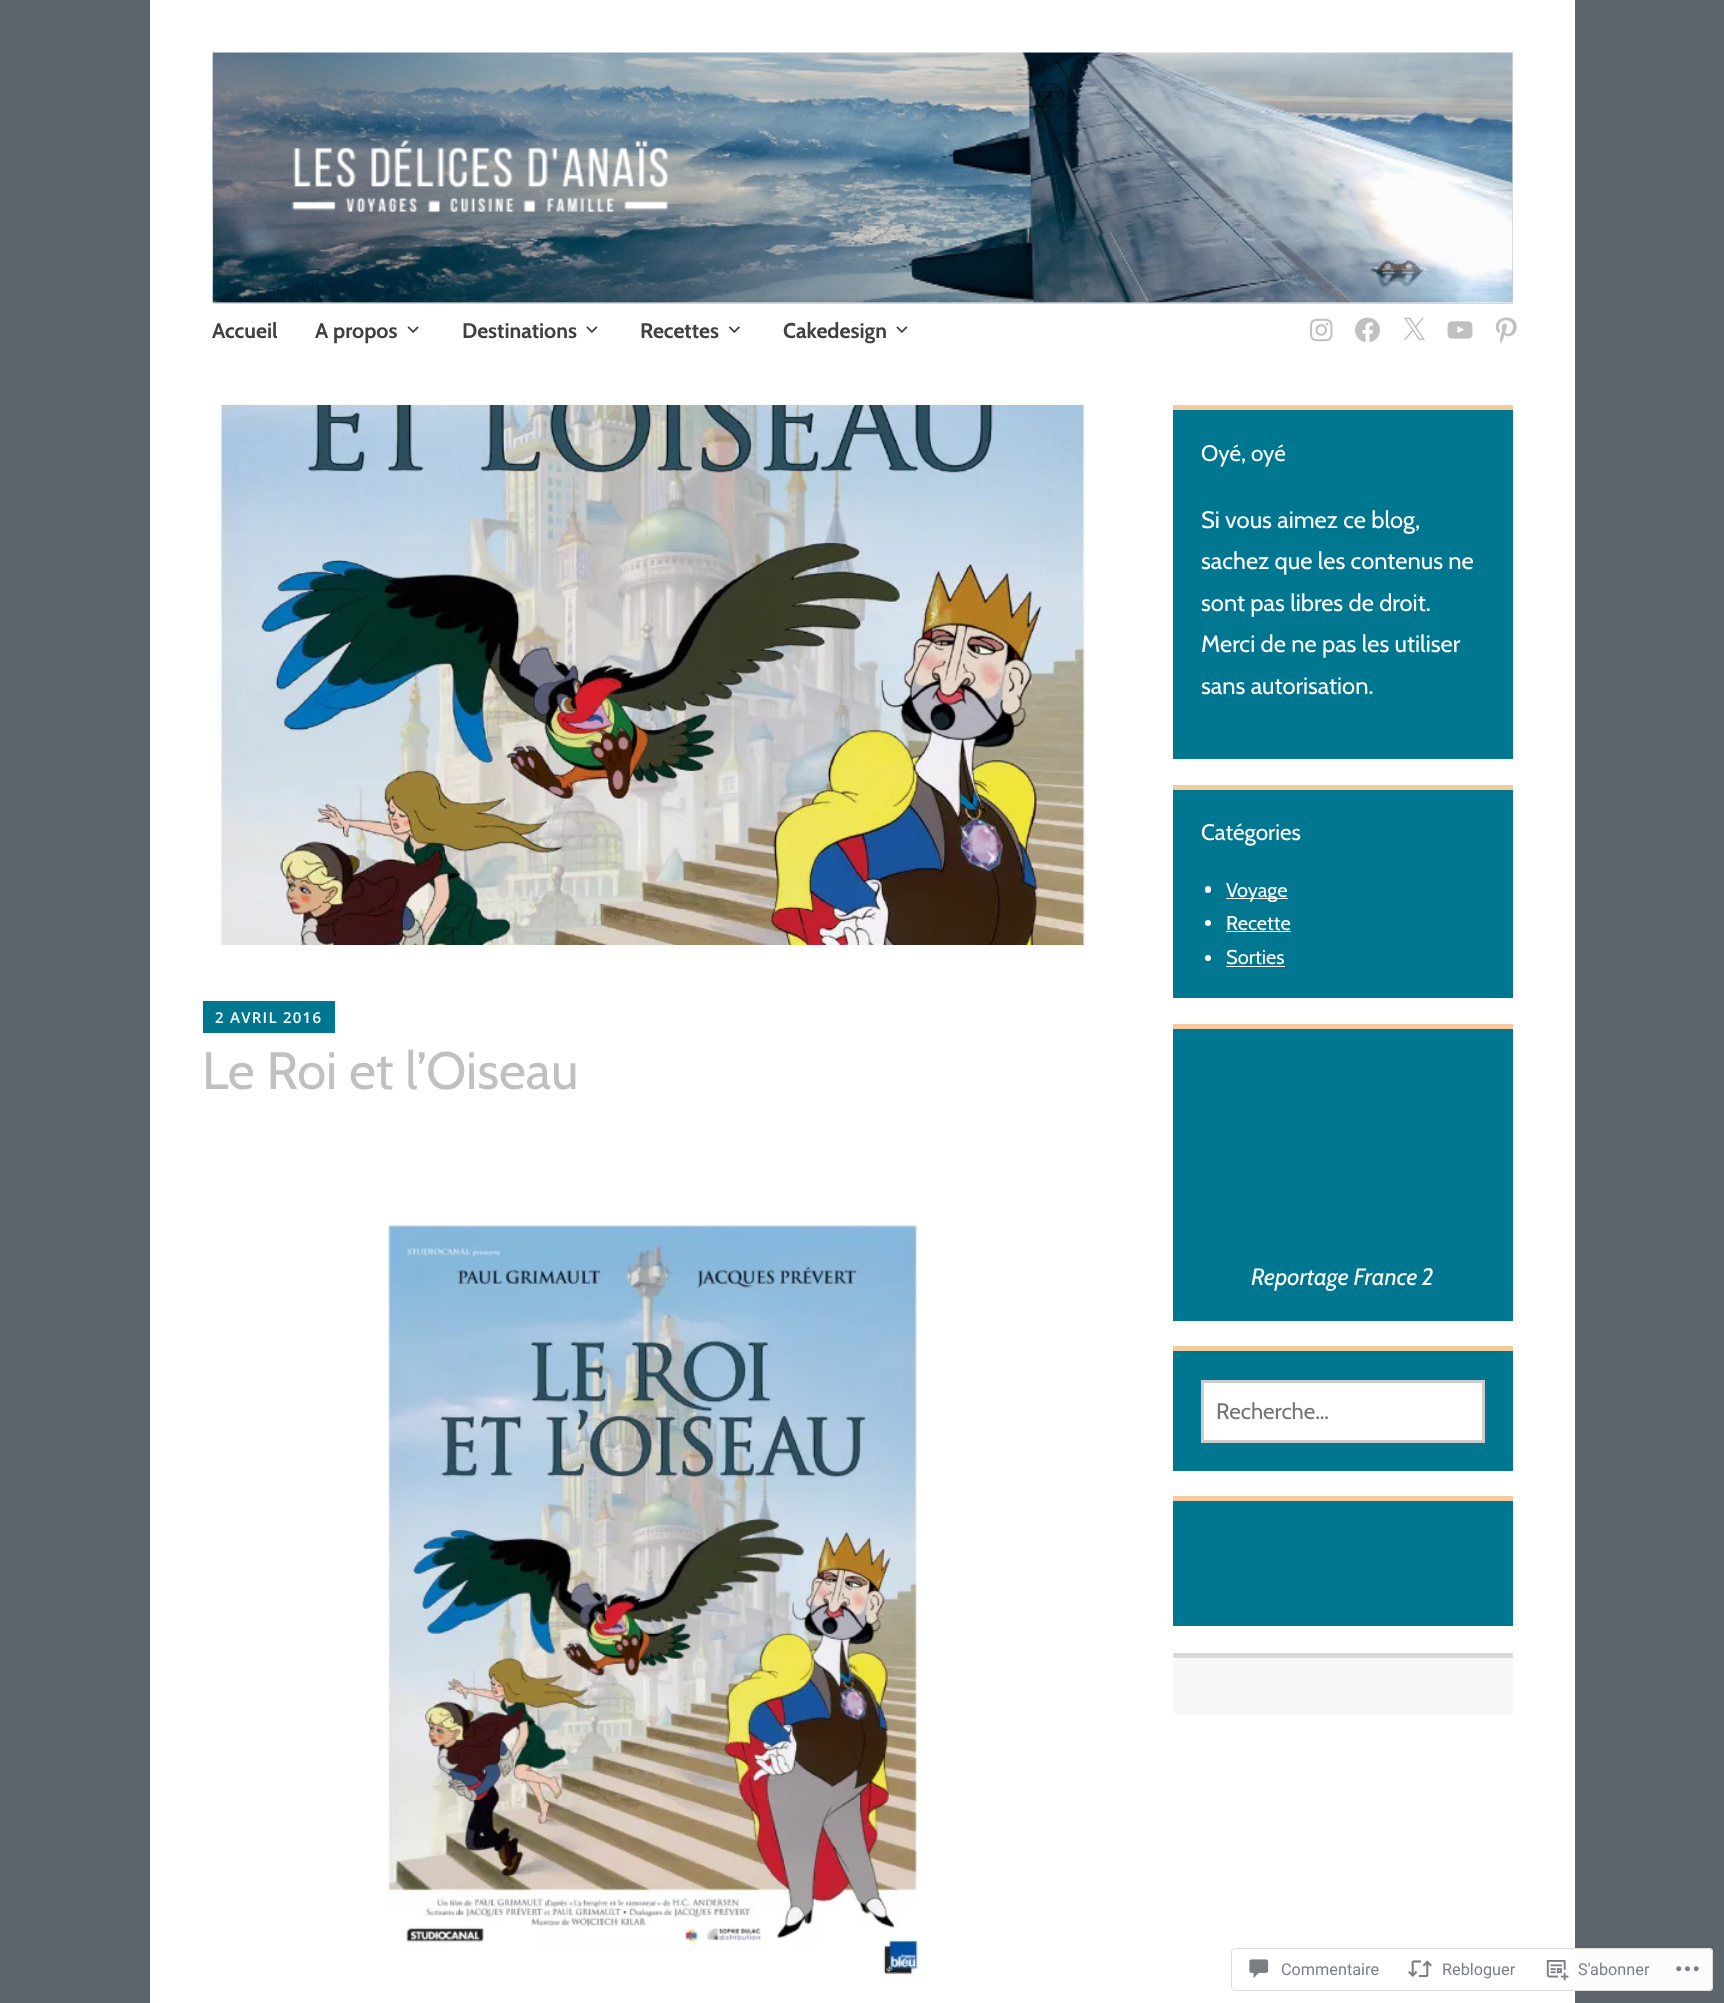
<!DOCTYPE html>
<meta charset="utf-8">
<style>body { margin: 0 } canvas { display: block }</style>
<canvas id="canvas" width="1724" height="2003"></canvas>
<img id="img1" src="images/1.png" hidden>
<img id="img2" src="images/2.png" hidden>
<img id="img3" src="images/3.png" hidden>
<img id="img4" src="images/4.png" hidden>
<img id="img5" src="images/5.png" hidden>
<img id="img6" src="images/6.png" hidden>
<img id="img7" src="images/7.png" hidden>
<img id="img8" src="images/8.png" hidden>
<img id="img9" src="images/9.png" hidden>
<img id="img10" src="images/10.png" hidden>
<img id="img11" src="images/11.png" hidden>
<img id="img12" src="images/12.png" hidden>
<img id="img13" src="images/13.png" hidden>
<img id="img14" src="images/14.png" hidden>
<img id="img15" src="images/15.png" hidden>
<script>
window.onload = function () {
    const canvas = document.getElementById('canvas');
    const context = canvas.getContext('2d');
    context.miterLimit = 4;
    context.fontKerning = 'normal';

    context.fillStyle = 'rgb(93, 100, 108)';
    context.fillRect(0, 0, 1724, 2003);
    context.fillStyle = 'rgb(255, 255, 255)';
    context.fillRect(150, 0, 1425, 2003);
    context.drawImage(document.getElementById('img1'), 212, 52, 1301, 251);
    context.fillStyle = 'rgb(217, 217, 217)';
    context.fillRect(213, 303, 1300, 1);
    context.drawImage(document.getElementById('img2'), 407, 326, 12, 7);
    context.drawImage(document.getElementById('img3'), 586, 326, 12, 7);
    context.drawImage(document.getElementById('img4'), 728, 326, 12, 7);
    context.drawImage(document.getElementById('img3'), 896, 326, 12, 7);
    context.drawImage(document.getElementById('img5'), 1310, 318, 23, 24);
    context.drawImage(document.getElementById('img6'), 1355, 317, 25, 26);
    context.drawImage(document.getElementById('img7'), 1404, 317, 21, 23);
    context.drawImage(document.getElementById('img8'), 1447, 321, 26, 18);
    context.drawImage(document.getElementById('img9'), 1495, 317, 22, 27);
    context.drawImage(document.getElementById('img10'), 216, 405, 870, 540);
    context.fillStyle = 'rgb(0, 119, 145)';
    context.fillRect(203, 1001, 132, 32);
    context.drawImage(document.getElementById('img11'), 387, 1225, 532, 750);
    context.fillRect(1173, 410, 340, 349);
    context.fillStyle = 'rgb(245, 202, 157)';
    context.fillRect(1173, 405, 340, 5);
    context.fillStyle = 'rgb(0, 119, 145)';
    context.fillRect(1173, 790, 340, 208);
    context.fillStyle = 'rgb(245, 202, 157)';
    context.fillRect(1173, 785, 340, 5);
    context.fillStyle = 'rgb(255, 255, 255)';
    context.beginPath();
    context.roundRect(1205, 886, 6, 7, 3);
    context.fill();
    context.fillRect(1226, 898, 62, 1);
    context.beginPath();
    context.arc(1208, 923, 3, 0, 2 * Math.PI);
    context.fill();
    context.fillRect(1226, 931, 65, 1);
    context.beginPath();
    context.arc(1208, 958, 3, 0, 2 * Math.PI);
    context.fill();
    context.fillRect(1226, 966, 59, 1);
    context.fillStyle = 'rgb(0, 119, 145)';
    context.fillRect(1173, 1029, 340, 292);
    context.fillStyle = 'rgb(245, 202, 157)';
    context.fillRect(1173, 1024, 340, 5);
    context.fillStyle = 'rgb(0, 119, 145)';
    context.fillRect(1173, 1351, 340, 120);
    context.fillStyle = 'rgb(245, 202, 157)';
    context.fillRect(1173, 1346, 340, 5);
    context.fillStyle = 'rgb(255, 255, 255)';
    context.beginPath();
    context.rect(1202.5, 1381.5, 281, 60);
    context.fill();
    context.strokeStyle = 'rgb(204, 204, 204)';
    context.lineWidth = 3;
    context.stroke();
    context.fillStyle = 'rgb(0, 119, 145)';
    context.fillRect(1173, 1501, 340, 125);
    context.fillStyle = 'rgb(245, 202, 157)';
    context.fillRect(1173, 1496, 340, 5);
    context.fillStyle = 'rgb(248, 248, 248)';
    context.fillRect(1173, 1658, 340, 56);
    context.fillStyle = 'rgb(217, 217, 217)';
    context.fillRect(1173, 1653, 340, 5);
    context.fillStyle = 'rgba(255, 255, 255, 0.98)';
    context.beginPath();
    context.roundRect(1231, 1948, 482, 43, 4);
    context.fill();
    context.beginPath();
    context.roundRect(1231.5, 1948.5, 481, 42, 3.5);
    context.strokeStyle = 'rgba(220, 220, 222, 0.98)';
    context.lineWidth = 1;
    context.stroke();
    context.drawImage(document.getElementById('img12'), 1249, 1959, 20, 19);
    context.drawImage(document.getElementById('img13'), 1408, 1960, 24, 18);
    context.drawImage(document.getElementById('img14'), 1546, 1960, 23, 21);
    context.drawImage(document.getElementById('img15'), 1676, 1966, 23, 6);
    context.font = 'bold 21.25px Cabin';
    context.fillStyle = 'rgb(64, 64, 64)';
    context.fillText('Accueil', 212, 338);
    context.fillText('A propos', 315, 338);
    context.fillText('Destinations', 462, 338);
    context.fillText('Recettes', 640, 338);
    context.fillText('Cakedesign', 783, 338);
    context.letterSpacing = '1.25px';
    context.font = '600 15px Open Sans';
    context.fillStyle = 'rgb(255, 255, 255)';
    context.fillText('2 AVRIL 2016', 215, 1023);
    context.letterSpacing = '0px';
    context.font = '52.5px Cabin';
    context.fillStyle = 'rgb(192, 192, 192)';
    context.fillText('Le Roi et l’Oiseau', 202, 1089);
    context.font = '22.5px Cabin';
    context.fillStyle = 'rgb(255, 255, 255)';
    context.fillText('Oyé, oyé', 1201, 461);
    context.font = '23.75px Cabin';
    context.fillText('Si vous aimez ce blog,', 1201, 528);
    context.fillText('sachez que les contenus ne', 1201, 569);
    context.fillText('sont pas libres de droit.', 1201, 611);
    context.fillText('Merci de ne pas les utiliser', 1201, 652);
    context.fillText('sans autorisation.', 1201, 694);
    context.font = '22.5px Cabin';
    context.fillText('Catégories', 1201, 840);
    context.font = '20px Cabin';
    context.fillText('Voyage', 1226, 897);
    context.fillText('Recette', 1226, 930);
    context.fillText('Sorties', 1226, 964);
    context.font = 'italic 23.75px Cabin';
    context.fillText('Reportage France 2', 1251, 1285);
    context.font = '22.5px Cabin';
    context.fillStyle = 'rgb(117, 117, 117)';
    context.fillText('Recherche…', 1216, 1419);
    context.font = '16.25px Roboto';
    context.fillStyle = 'rgb(123, 127, 133)';
    context.fillText('Commentaire', 1281, 1975);
    context.fillText('Rebloguer', 1442, 1975);
    context.fillText('S\'abonner', 1578, 1975);
};
</script>
